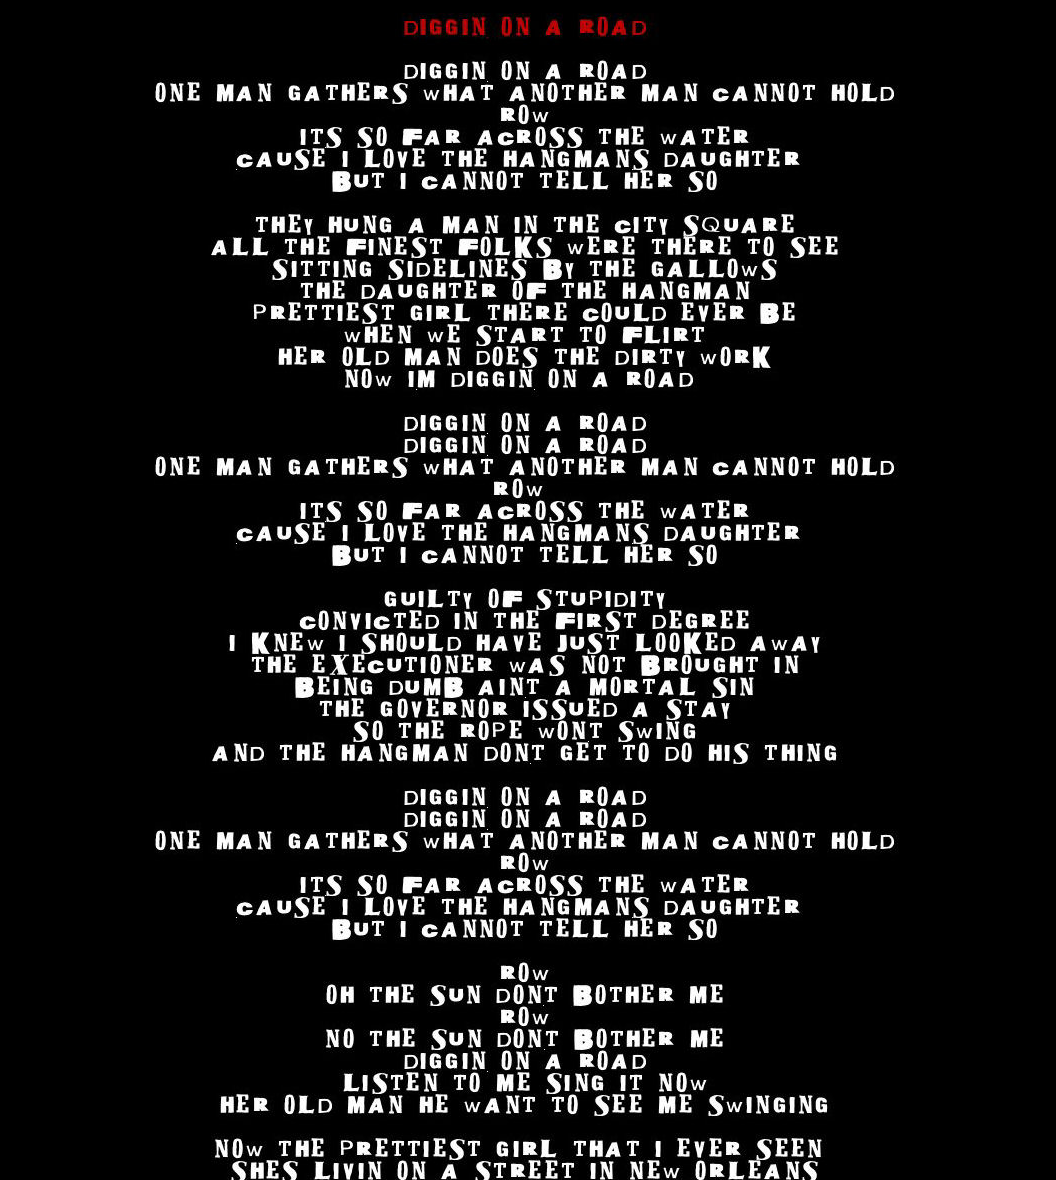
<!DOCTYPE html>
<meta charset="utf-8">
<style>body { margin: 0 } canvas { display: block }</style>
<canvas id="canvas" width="1056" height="1180"></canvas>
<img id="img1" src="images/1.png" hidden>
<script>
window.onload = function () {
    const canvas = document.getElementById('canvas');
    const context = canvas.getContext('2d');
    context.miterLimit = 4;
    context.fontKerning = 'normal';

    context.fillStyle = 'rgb(0, 0, 0)';
    context.fillRect(0, 0, 1056, 1180);
    context.drawImage(document.getElementById('img1'), 154, 13, 745, 1167);
};
</script>
